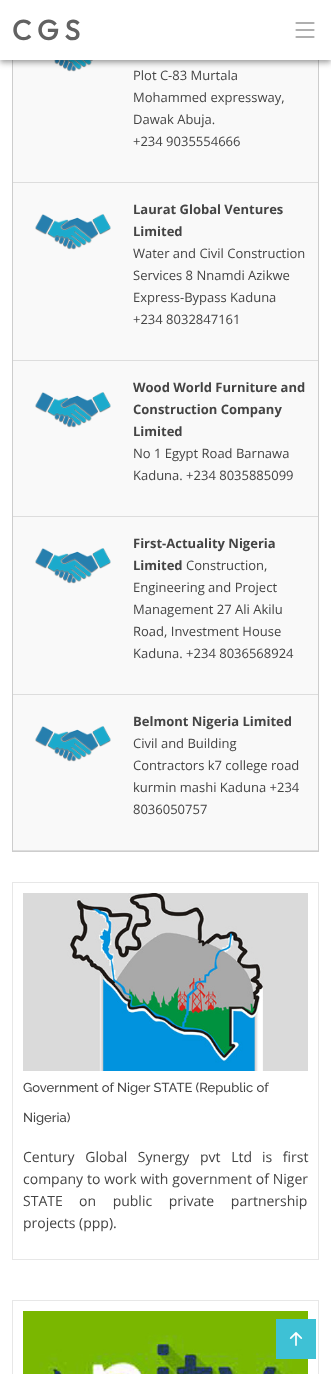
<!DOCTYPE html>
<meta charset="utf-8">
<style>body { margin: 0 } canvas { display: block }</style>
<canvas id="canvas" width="331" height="1374"></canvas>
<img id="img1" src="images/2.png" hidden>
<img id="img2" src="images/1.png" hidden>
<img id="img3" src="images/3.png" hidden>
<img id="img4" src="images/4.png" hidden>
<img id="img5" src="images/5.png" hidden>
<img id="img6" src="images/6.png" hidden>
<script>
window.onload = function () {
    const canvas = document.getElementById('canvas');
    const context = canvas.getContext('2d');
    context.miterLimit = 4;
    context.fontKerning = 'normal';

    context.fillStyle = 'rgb(255, 255, 255)';
    context.fillRect(0, 0, 331, 1374);
    context.fillStyle = 'rgb(249, 249, 249)';
    context.fillRect(13, 60, 305, 790);
    context.strokeStyle = 'rgb(205, 205, 205)';
    context.strokeRect(12.5, -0.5, 306, 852);
    context.drawImage(document.getElementById('img1'), 54, 60, 39, 12);
    context.fillStyle = 'rgba(0, 0, 0, 0.2)';
    context.filter = 'blur(2px)';
    context.beginPath();
    context.rect(1, 3, 329, 58);
    context.fill();
    context.filter = 'none';
    context.fillStyle = 'rgba(0, 0, 0, 0.12)';
    context.filter = 'blur(5px)';
    context.beginPath();
    context.rect(0, 1, 331, 60);
    context.fill();
    context.filter = 'none';
    context.fillStyle = 'rgba(0, 0, 0, 0.14)';
    context.filter = 'blur(2.5px)';
    context.beginPath();
    context.rect(0, 4, 331, 60);
    context.fill();
    context.filter = 'none';
    context.fillStyle = 'rgb(255, 255, 255)';
    context.fillRect(0, 0, 331, 60);
    context.drawImage(document.getElementById('img2'), 295, 22, 20, 16);
    context.fillStyle = 'rgb(221, 221, 221)';
    context.fillRect(13, 182, 305, 1);
    context.fillRect(13, 360, 305, 1);
    context.drawImage(document.getElementById('img3'), 35, 214, 76, 36);
    context.fillRect(13, 516, 305, 1);
    context.drawImage(document.getElementById('img3'), 35, 392, 76, 36);
    context.fillRect(13, 694, 305, 1);
    context.drawImage(document.getElementById('img3'), 35, 548, 76, 36);
    context.fillRect(13, 850, 305, 1);
    context.drawImage(document.getElementById('img3'), 35, 726, 76, 36);
    context.strokeStyle = 'rgb(231, 231, 231)';
    context.strokeRect(12.5, 882.5, 306, 377);
    context.drawImage(document.getElementById('img4'), 23, 893, 285, 178);
    context.strokeRect(12.5, 1300.5, 306, 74);
    context.drawImage(document.getElementById('img5'), 23, 1311, 285, 63);
    context.fillStyle = 'rgb(62, 193, 213)';
    context.fillRect(276, 1319, 40, 40);
    context.drawImage(document.getElementById('img6'), 289, 1332, 14, 14);
    context.font = 'bold 28px Outfit';
    context.fillStyle = 'rgb(98, 98, 98)';
    context.fillText('C G S', 12, 40);
    context.font = '13px Open Sans';
    context.fillStyle = 'rgb(68, 68, 68)';
    context.fillText('Plot C-83 Murtala', 133, 80);
    context.fillText('Mohammed expressway,', 133, 102);
    context.fillText('Dawak Abuja.', 133, 124);
    context.fillText('+234 9035554666', 133, 146);
    context.font = 'bold 13px Open Sans';
    context.fillText('Laurat Global Ventures', 133, 214);
    context.fillText('Limited', 133, 236);
    context.font = '13px Open Sans';
    context.fillText('Water and Civil Construction', 133, 258);
    context.fillText('Services 8 Nnamdi Azikwe', 133, 280);
    context.fillText('Express-Bypass Kaduna', 133, 302);
    context.fillText('+234 8032847161', 133, 324);
    context.font = 'bold 13px Open Sans';
    context.fillText('Wood World Furniture and', 133, 392);
    context.fillText('Construction Company', 133, 414);
    context.fillText('Limited', 133, 436);
    context.font = '13px Open Sans';
    context.fillText('No 1 Egypt Road Barnawa', 133, 458);
    context.fillText('Kaduna. +234 8035885099', 133, 480);
    context.font = 'bold 13px Open Sans';
    context.fillText('First-Actuality Nigeria', 133, 548);
    context.fillText('Limited', 133, 570);
    context.font = '13px Open Sans';
    context.fillText('Construction,', 186, 570);
    context.fillText('Engineering and Project', 133, 592);
    context.fillText('Management 27 Ali Akilu', 133, 614);
    context.fillText('Road, Investment House', 133, 636);
    context.fillText('Kaduna. +234 8036568924', 133, 658);
    context.font = 'bold 13px Open Sans';
    context.fillText('Belmont Nigeria Limited', 133, 726);
    context.font = '13px Open Sans';
    context.fillText('Civil and Building', 133, 748);
    context.fillText('Contractors k7 college road', 133, 770);
    context.fillText('kurmin mashi Kaduna +234', 133, 792);
    context.fillText('8036050757', 133, 814);
    context.font = '500 13px Raleway';
    context.fillText('Government of Niger STATE (Republic of', 23, 1092);
    context.fillText('Nigeria)', 23, 1122);
    context.wordSpacing = '7px';
    context.font = '14px Open Sans';
    context.fillText('Century Global Synergy pvt Ltd', 23, 1162);
    context.fillText('is first', 262, 1162);
    context.wordSpacing = '0.25px';
    context.fillText('company to work with government of Niger', 23, 1184);
    context.wordSpacing = '0px';
    context.fillText('STATE', 23, 1206);
    context.wordSpacing = '13px';
    context.fillText('on public private partnership', 79, 1206);
    context.wordSpacing = '0px';
    context.fillText('projects (ppp).', 23, 1228);
};
</script>
